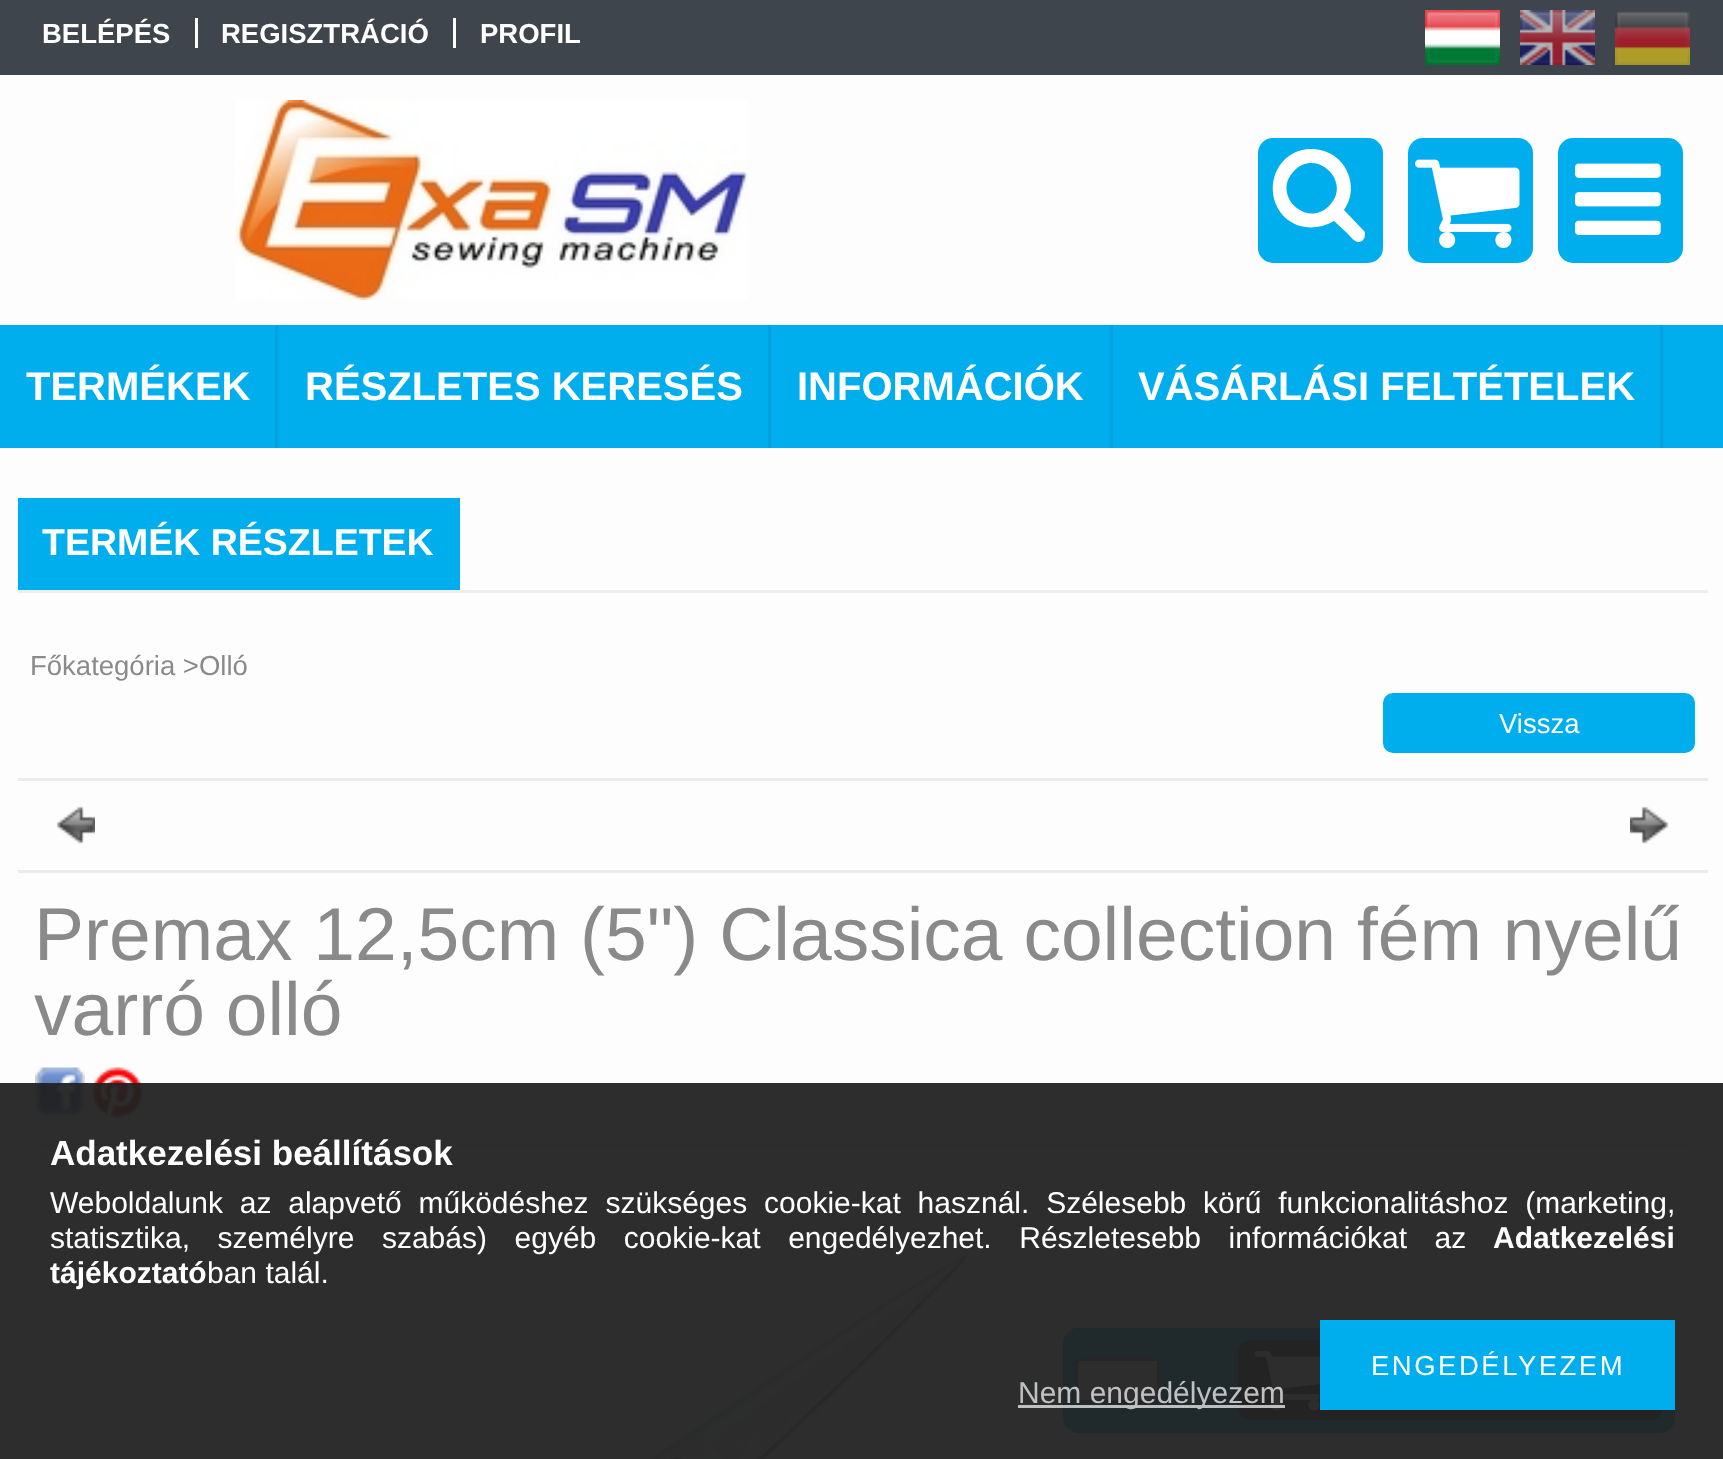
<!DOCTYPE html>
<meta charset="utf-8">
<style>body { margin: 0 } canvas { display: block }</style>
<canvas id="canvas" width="1723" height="1459"></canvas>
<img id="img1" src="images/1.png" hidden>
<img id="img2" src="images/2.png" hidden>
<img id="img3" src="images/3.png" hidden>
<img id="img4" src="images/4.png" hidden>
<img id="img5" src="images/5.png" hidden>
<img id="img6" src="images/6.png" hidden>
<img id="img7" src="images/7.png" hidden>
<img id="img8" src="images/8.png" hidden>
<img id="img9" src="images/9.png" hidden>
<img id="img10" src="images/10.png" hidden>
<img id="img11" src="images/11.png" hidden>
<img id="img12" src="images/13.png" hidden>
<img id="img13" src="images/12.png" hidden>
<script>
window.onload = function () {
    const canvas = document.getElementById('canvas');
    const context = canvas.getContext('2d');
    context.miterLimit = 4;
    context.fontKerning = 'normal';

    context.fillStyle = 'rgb(253, 253, 253)';
    context.fillRect(0, 0, 1723, 1459);
    context.fillStyle = 'rgb(62, 69, 76)';
    context.fillRect(0, 0, 1723, 75);
    context.fillStyle = 'rgb(255, 255, 255)';
    context.fillRect(195, 18, 3, 30);
    context.fillRect(453, 18, 3, 30);
    context.drawImage(document.getElementById('img1'), 1425, 10, 75, 55);
    context.drawImage(document.getElementById('img2'), 1520, 10, 75, 55);
    context.drawImage(document.getElementById('img3'), 1615, 10, 75, 55);
    context.drawImage(document.getElementById('img4'), 235, 100, 513, 200);
    context.fillStyle = 'rgb(0, 174, 237)';
    context.beginPath();
    context.roundRect(1258, 138, 125, 125, 15);
    context.fill();
    context.fillStyle = 'rgb(255, 255, 255)';
    context.beginPath();
    context.moveTo(1329, 206);
    context.bezierCurveTo(1353, 183, 1317, 147, 1294, 171);
    context.bezierCurveTo(1271, 194, 1306, 229, 1329, 206);
    context.closePath();
    context.moveTo(1365, 235);
    context.bezierCurveTo(1365, 237, 1364, 239, 1362, 241);
    context.bezierCurveTo(1356, 245, 1351, 237, 1347, 233);
    context.lineTo(1334, 221);
    context.bezierCurveTo(1324, 227, 1312, 229, 1300, 226);
    context.bezierCurveTo(1263, 214, 1264, 160, 1302, 150);
    context.bezierCurveTo(1311, 148, 1321, 149, 1329, 153);
    context.bezierCurveTo(1350, 163, 1358, 191, 1344, 210);
    context.lineTo(1363, 230);
    context.bezierCurveTo(1365, 231, 1365, 233, 1365, 235);
    context.closePath();
    context.fill();
    context.fillStyle = 'rgb(0, 174, 237)';
    context.beginPath();
    context.roundRect(1408, 138, 125, 125, 15);
    context.fill();
    context.drawImage(document.getElementById('img5'), 1415, 159, 105, 89);
    context.beginPath();
    context.roundRect(1558, 138, 125, 125, 15);
    context.fill();
    context.drawImage(document.getElementById('img6'), 1575, 163, 86, 72);
    context.fillRect(0, 325, 1723, 123);
    context.save();
    context.beginPath();
    context.rect(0, 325, 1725, 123);
    context.clip();
    context.beginPath();
    context.moveTo(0, 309);
    context.lineTo(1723, 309);
    context.lineTo(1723, 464);
    context.lineTo(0, 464);
    context.closePath();
    context.moveTo(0, 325);
    context.lineTo(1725, 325);
    context.lineTo(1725, 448);
    context.lineTo(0, 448);
    context.closePath();
    context.clip('evenodd');
    context.fillStyle = 'rgba(0, 0, 0, 0.2)';
    context.filter = 'blur(5px)';
    context.beginPath();
    context.rect(10, 325, 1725, 123);
    context.fill();
    context.filter = 'none';
    context.restore();
    context.fillStyle = 'rgba(0, 0, 0, 0.07)';
    context.fillRect(275, 325, 3, 123);
    context.fillRect(768, 325, 3, 123);
    context.fillRect(1110, 325, 3, 123);
    context.fillRect(1660, 325, 3, 123);
    context.fillStyle = 'rgb(239, 239, 239)';
    context.fillRect(18, 590, 1690, 3);
    context.fillStyle = 'rgb(0, 174, 237)';
    context.fillRect(18, 498, 442, 92);
    context.beginPath();
    context.roundRect(1383, 693, 312, 60, 10);
    context.fill();
    context.fillStyle = 'rgb(236, 234, 234)';
    context.fillRect(18, 778, 1690, 3);
    context.drawImage(document.getElementById('img7'), 56, 806, 39, 38);
    context.drawImage(document.getElementById('img8'), 1630, 806, 39, 38);
    context.fillRect(18, 870, 1690, 3);
    context.fillRect(35, 1143, 1655, 3);
    context.drawImage(document.getElementById('img9'), 35, 1067, 50, 51);
    context.drawImage(document.getElementById('img10'), 92, 1067, 51, 51);
    context.drawImage(document.getElementById('img11'), 644, 1247, 326, 212);
    context.fillStyle = 'rgb(0, 174, 237)';
    context.beginPath();
    context.roundRect(1063, 1328, 612, 105, 15);
    context.fill();
    context.fillStyle = 'rgb(255, 255, 255)';
    context.beginPath();
    context.roundRect(1076.5, 1359.5, 82, 42, 3.5);
    context.fill();
    context.strokeStyle = 'rgb(118, 118, 118)';
    context.lineWidth = 3;
    context.stroke();
    context.fillStyle = 'rgb(62, 69, 76)';
    context.beginPath();
    context.roundRect(1238, 1340, 425, 80, 13);
    context.fill();
    context.drawImage(document.getElementById('img12'), 1255, 1351, 65, 60);
    context.drawImage(document.getElementById('img13'), 1255, 1351, 65, 60);
    context.fillStyle = 'rgba(34, 34, 34, 0.95)';
    context.fillRect(0, 1083, 1723, 376);
    context.fillStyle = 'rgb(0, 174, 237)';
    context.fillRect(1320, 1320, 355, 90);
    context.fillStyle = 'rgba(255, 255, 255, 0.7)';
    context.fillRect(1018, 1405, 267, 3);
    context.font = 'bold 27.5px Liberation Sans';
    context.fillStyle = 'rgb(255, 255, 255)';
    context.fillText('BELÉPÉS', 42, 43);
    context.fillText('REGISZTRÁCIÓ', 221, 43);
    context.fillText('PROFIL', 480, 43);
    context.font = 'bold 40px Liberation Sans';
    context.fillText('TERMÉKEK', 26, 400);
    context.fillText('RÉSZLETES KERESÉS', 305, 400);
    context.fillText('INFORMÁCIÓK', 797, 400);
    context.fillText('VÁSÁRLÁSI FELTÉTELEK', 1138, 400);
    context.font = 'bold 37.5px Liberation Sans';
    context.fillText('TERMÉK RÉSZLETEK', 42, 555);
    context.font = '27.5px Liberation Sans';
    context.fillStyle = 'rgb(139, 138, 138)';
    context.fillText('Főkategória >Olló', 30, 675);
    context.fillStyle = 'rgb(255, 255, 255)';
    context.fillText('Vissza', 1499, 733);
    context.font = '75px Liberation Sans';
    context.fillStyle = 'rgb(139, 138, 138)';
    context.fillText('Premax 12,5cm (5") Classica collection fém nyelű', 34, 960);
    context.fillText('varró olló', 34, 1035);
    context.font = 'bold 35px Liberation Sans';
    context.fillStyle = 'rgb(255, 255, 255)';
    context.fillText('Adatkezelési beállítások', 50, 1165);
    context.wordSpacing = '8.5px';
    context.font = '30px Liberation Sans';
    context.fillText('Weboldalunk az alapvető működéshez szükséges cookie-kat használ. Szélesebb körű funkcionalitáshoz (marketing,', 50, 1213);
    context.wordSpacing = '19.25px';
    context.fillText('statisztika, személyre szabás) egyéb cookie-kat engedélyezhet. Részletesebb információkat az', 50, 1248);
    context.wordSpacing = '0px';
    context.font = 'bold 30px Liberation Sans';
    context.fillText('Adatkezelési', 1493, 1248);
    context.fillText('tájékoztató', 50, 1283);
    context.font = '30px Liberation Sans';
    context.fillText('ban talál.', 207, 1283);
    context.letterSpacing = '2.5px';
    context.font = '27.5px Liberation Sans';
    context.fillText('ENGEDÉLYEZEM', 1371, 1375);
    context.letterSpacing = '0px';
    context.font = '30px Liberation Sans';
    context.fillStyle = 'rgb(191, 192, 192)';
    context.fillText('Nem engedélyezem', 1018, 1403);
};
</script>
